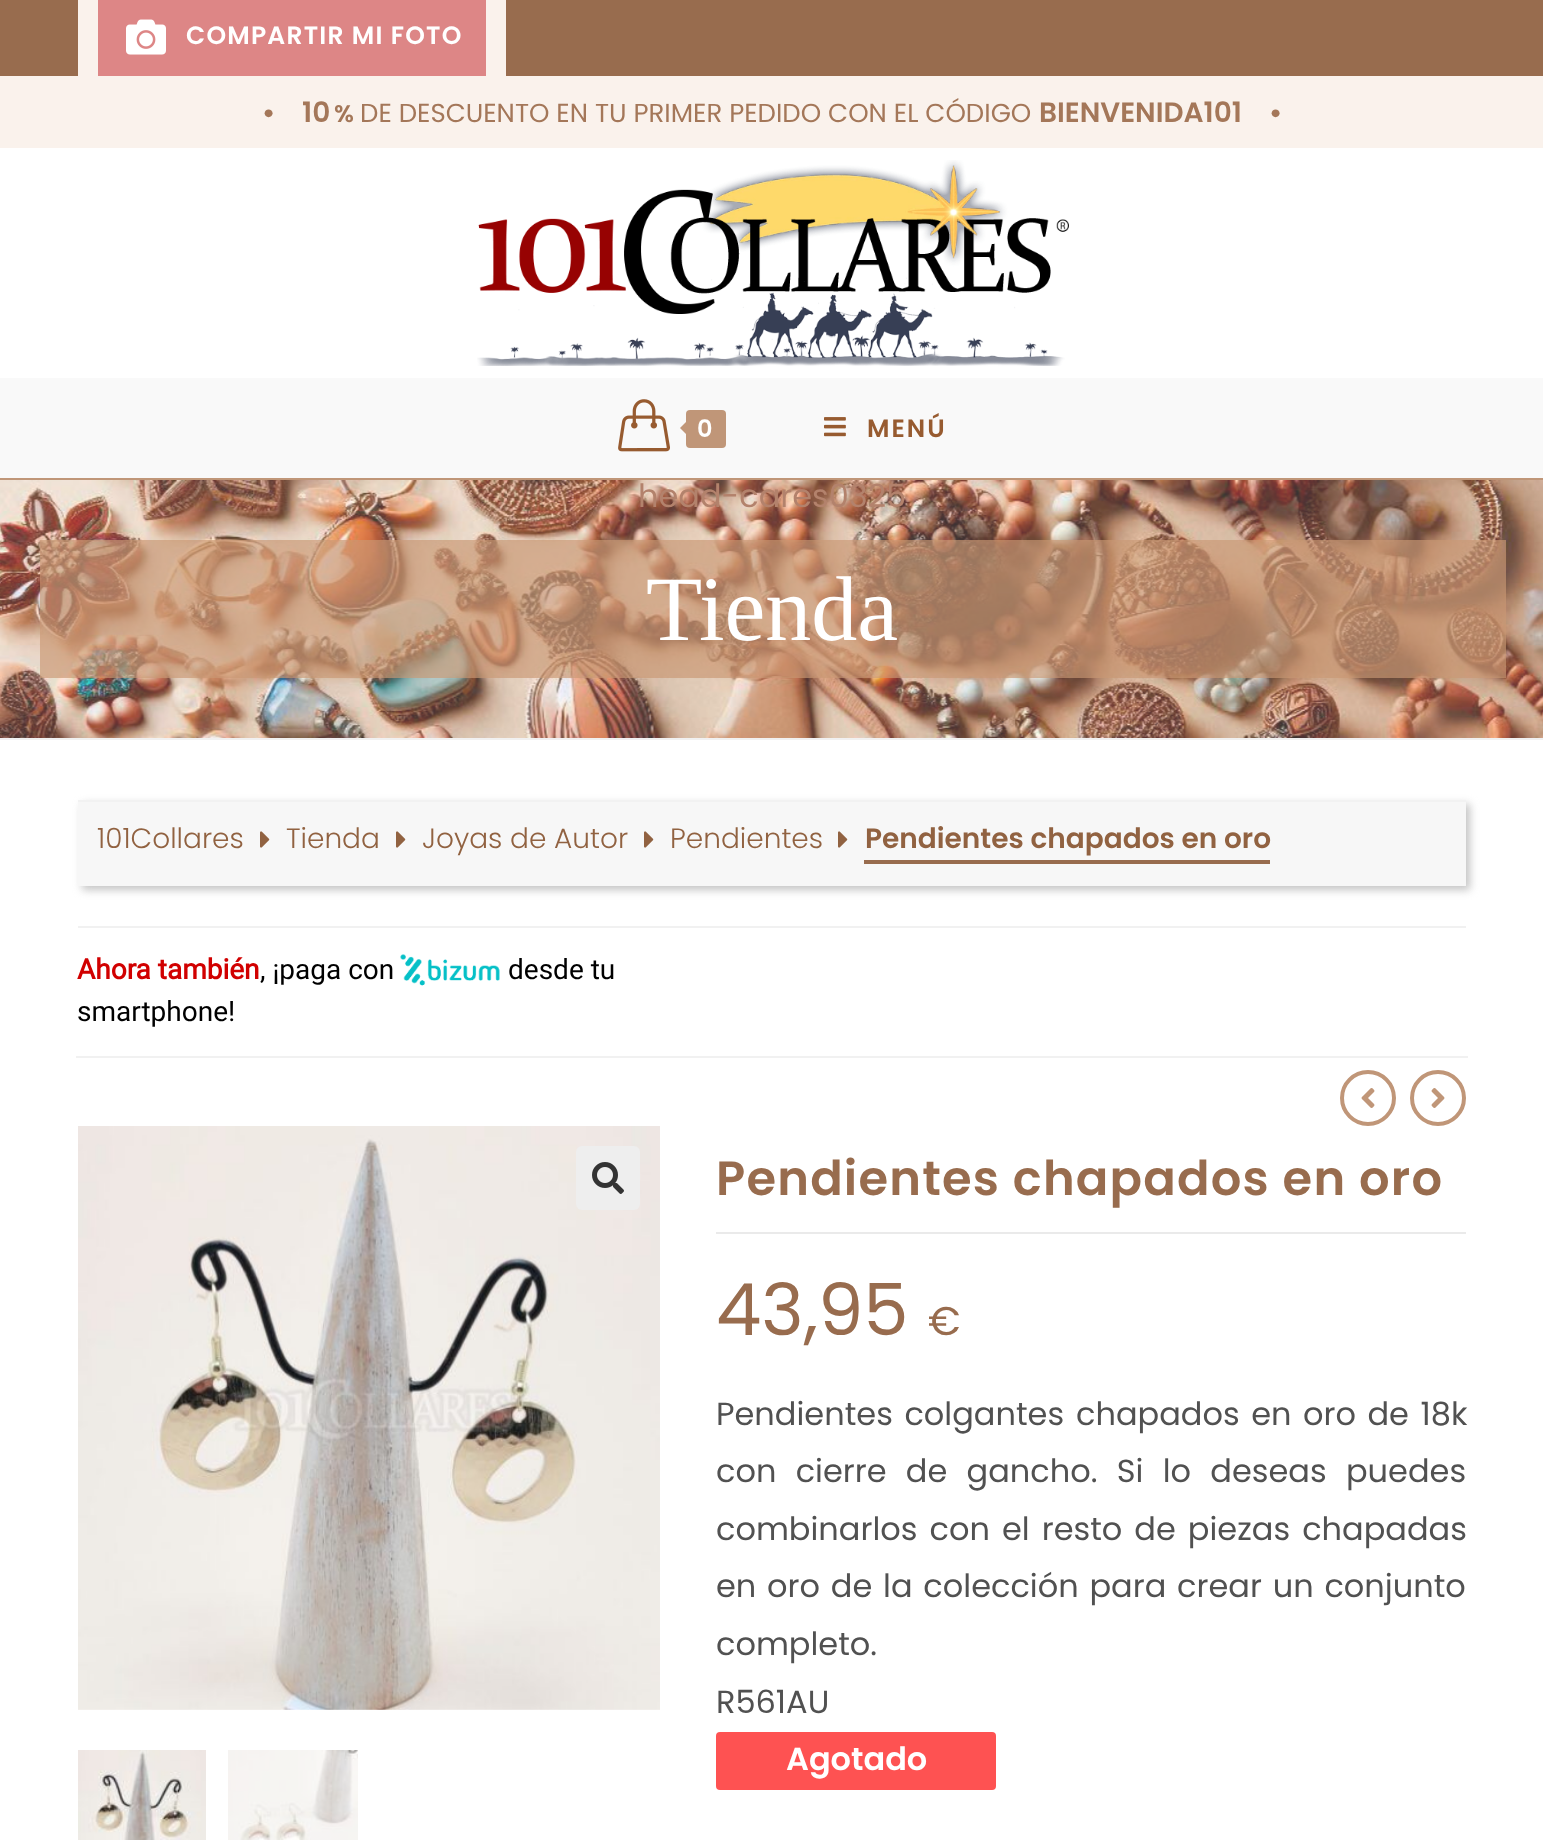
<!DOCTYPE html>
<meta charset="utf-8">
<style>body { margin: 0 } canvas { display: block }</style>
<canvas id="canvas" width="1543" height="1840"></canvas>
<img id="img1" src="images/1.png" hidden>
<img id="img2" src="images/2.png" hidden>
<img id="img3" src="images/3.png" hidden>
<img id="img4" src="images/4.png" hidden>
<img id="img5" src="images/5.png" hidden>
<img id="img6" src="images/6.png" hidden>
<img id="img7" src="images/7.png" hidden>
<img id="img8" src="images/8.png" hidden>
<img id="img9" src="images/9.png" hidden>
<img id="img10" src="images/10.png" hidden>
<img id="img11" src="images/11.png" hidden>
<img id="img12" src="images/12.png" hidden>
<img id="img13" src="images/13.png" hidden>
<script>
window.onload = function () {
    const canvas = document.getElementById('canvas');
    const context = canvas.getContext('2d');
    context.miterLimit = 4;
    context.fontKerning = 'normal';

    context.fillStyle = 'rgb(255, 255, 255)';
    context.fillRect(0, 0, 1543, 1840);
    context.fillStyle = 'rgb(152, 108, 78)';
    context.fillRect(0, 0, 1543, 76);
    context.fillStyle = 'rgb(221, 134, 134)';
    context.fillRect(98, 0, 388, 76);
    context.fillStyle = 'rgb(250, 242, 236)';
    context.fillRect(486, 0, 20, 76);
    context.fillRect(78, 0, 20, 76);
    context.drawImage(document.getElementById('img1'), 126, 19, 40, 36);
    context.fillRect(0, 76, 1543, 72);
    context.fillStyle = 'rgb(192, 150, 120)';
    context.fillRect(0, 478, 1543, 2);
    context.drawImage(document.getElementById('img2'), 477, 160, 592, 206);
    context.fillStyle = 'rgb(249, 249, 249)';
    context.fillRect(0, 378, 1543, 100);
    context.drawImage(document.getElementById('img3'), 618, 399, 52, 53);
    context.fillStyle = 'rgb(192, 150, 120)';
    context.beginPath();
    context.roundRect(686, 410, 40, 38, 4);
    context.fill();
    context.beginPath();
    context.moveTo(690, 418);
    context.lineTo(690, 438);
    context.lineTo(680, 428);
    context.closePath();
    context.fill();
    context.drawImage(document.getElementById('img4'), 824, 417, 22, 20);
    context.fillStyle = 'rgb(241, 241, 241)';
    context.fillRect(0, 738, 1543, 2);
    context.drawImage(document.getElementById('img5'), 0, 480, 1543, 258);
    context.fillStyle = 'rgba(201, 152, 117, 0.67)';
    context.fillRect(40, 540, 1466, 138);
    context.fillStyle = 'rgb(196, 196, 196)';
    context.filter = 'blur(4px)';
    context.beginPath();
    context.rect(82, 804, 1388, 86);
    context.fill();
    context.filter = 'none';
    context.fillStyle = 'rgb(247, 247, 247)';
    context.fillRect(78, 802, 1388, 84);
    context.fillStyle = 'rgb(242, 242, 242)';
    context.fillRect(78, 800, 1388, 2);
    context.drawImage(document.getElementById('img6'), 260, 831, 10, 17);
    context.drawImage(document.getElementById('img6'), 396, 831, 10, 17);
    context.drawImage(document.getElementById('img6'), 644, 831, 10, 17);
    context.drawImage(document.getElementById('img6'), 838, 831, 10, 17);
    context.fillStyle = 'rgb(152, 108, 78)';
    context.fillRect(864, 860, 406, 4);
    context.fillStyle = 'rgb(241, 241, 241)';
    context.fillRect(78, 926, 1388, 2);
    context.fillRect(76, 1056, 1392, 2);
    context.drawImage(document.getElementById('img7'), 400, 954, 100, 32);
    context.beginPath();
    context.arc(1368, 1098, 26, 0, 2 * Math.PI);
    context.strokeStyle = 'rgb(192, 150, 120)';
    context.lineWidth = 4;
    context.stroke();
    context.drawImage(document.getElementById('img8'), 1361, 1088, 14, 20);
    context.beginPath();
    context.arc(1438, 1098, 26, 0, 2 * Math.PI);
    context.stroke();
    context.drawImage(document.getElementById('img9'), 1431, 1088, 14, 20);
    context.drawImage(document.getElementById('img10'), 78, 1126, 582, 584);
    context.fillStyle = 'rgb(238, 238, 238)';
    context.beginPath();
    context.roundRect(576, 1146, 64, 64, 6);
    context.fill();
    context.drawImage(document.getElementById('img11'), 592, 1162, 32, 32);
    context.drawImage(document.getElementById('img12'), 78, 1750, 128, 90);
    context.drawImage(document.getElementById('img13'), 228, 1750, 130, 90);
    context.fillStyle = 'rgb(234, 234, 234)';
    context.fillRect(716, 1232, 750, 2);
    context.fillStyle = 'rgb(254, 82, 82)';
    context.beginPath();
    context.roundRect(716, 1732, 280, 58, 4);
    context.fill();
    context.letterSpacing = '1.2px';
    context.font = '600 25px Poppins';
    context.fillStyle = 'rgb(255, 255, 255)';
    context.fillText('COMPARTIR MI FOTO', 186, 44);
    context.letterSpacing = '0px';
    context.font = '32px Poppins';
    context.fillStyle = 'rgb(164, 119, 89)';
    context.fillText('•', 262, 124);
    context.font = '600 28px Poppins';
    context.fillText('10', 302, 122);
    context.font = '600 24px Poppins';
    context.fillText('%', 334, 122);
    context.font = '26px Poppins';
    context.fillText('DE DESCUENTO EN TU PRIMER PEDIDO CON EL CÓDIGO', 360, 122);
    context.font = '600 28px Poppins';
    context.fillText('BIENVENIDA101', 1039, 122);
    context.font = '32px Poppins';
    context.fillText('•', 1269, 124);
    context.letterSpacing = '2px';
    context.font = '600 24px Poppins';
    context.fillStyle = 'rgb(255, 255, 255)';
    context.fillText('0', 697, 437);
    context.font = '600 25px Poppins';
    context.fillStyle = 'rgb(151, 91, 48)';
    context.fillText('MENÚ', 867, 437);
    context.letterSpacing = '0px';
    context.font = '32px Poppins';
    context.fillStyle = 'rgb(179, 130, 108)';
    context.fillText('head-cares0325', 638, 507);
    context.font = '92px Liberation Serif';
    context.fillStyle = 'rgb(255, 255, 255)';
    context.fillText('Tienda', 646, 640);
    context.font = '300 28px Poppins';
    context.fillStyle = 'rgb(145, 98, 65)';
    context.fillText('101Collares', 97, 848);
    context.fillText('Tienda', 286, 848);
    context.fillText('Joyas de Autor', 422, 848);
    context.fillText('Pendientes', 670, 848);
    context.font = '600 28px Poppins';
    context.fillText('Pendientes chapados en oro', 865, 848);
    context.font = 'bold 28px Roboto';
    context.fillStyle = 'rgb(209, 0, 0)';
    context.fillText('Ahora también', 77, 979);
    context.font = '28px Roboto';
    context.fillStyle = 'rgb(0, 0, 0)';
    context.fillText(', ¡paga con', 260, 979);
    context.fillText('desde tu', 508, 979);
    context.fillText('smartphone!', 77, 1021);
    context.letterSpacing = '1.2px';
    context.font = '600 48px Poppins';
    context.fillStyle = 'rgb(152, 108, 78)';
    context.fillText('Pendientes chapados en oro', 716, 1195);
    context.letterSpacing = '0px';
    context.font = '72px Poppins';
    context.fillText('43,95', 716, 1335);
    context.font = '40px Poppins';
    context.fillText('€', 928, 1335);
    context.wordSpacing = '3px';
    context.font = '32px Poppins';
    context.fillStyle = 'rgb(81, 81, 81)';
    context.fillText('Pendientes colgantes', 716, 1425);
    context.fillText('chapados en oro de 18k', 1076, 1425);
    context.wordSpacing = '10.75px';
    context.fillText('con cierre de gancho. Si lo deseas puedes', 716, 1482);
    context.wordSpacing = '3.5px';
    context.fillText('combinarlos con el resto de piezas chapadas', 716, 1540);
    context.wordSpacing = '2.25px';
    context.fillText('en oro de la colección para crear un conjunto', 716, 1597);
    context.wordSpacing = '0px';
    context.fillText('completo.', 716, 1655);
    context.fillText('R561AU', 716, 1713);
    context.font = '600 32px Poppins';
    context.fillStyle = 'rgb(255, 255, 255)';
    context.fillText('Agotado', 786, 1770);
};
</script>
